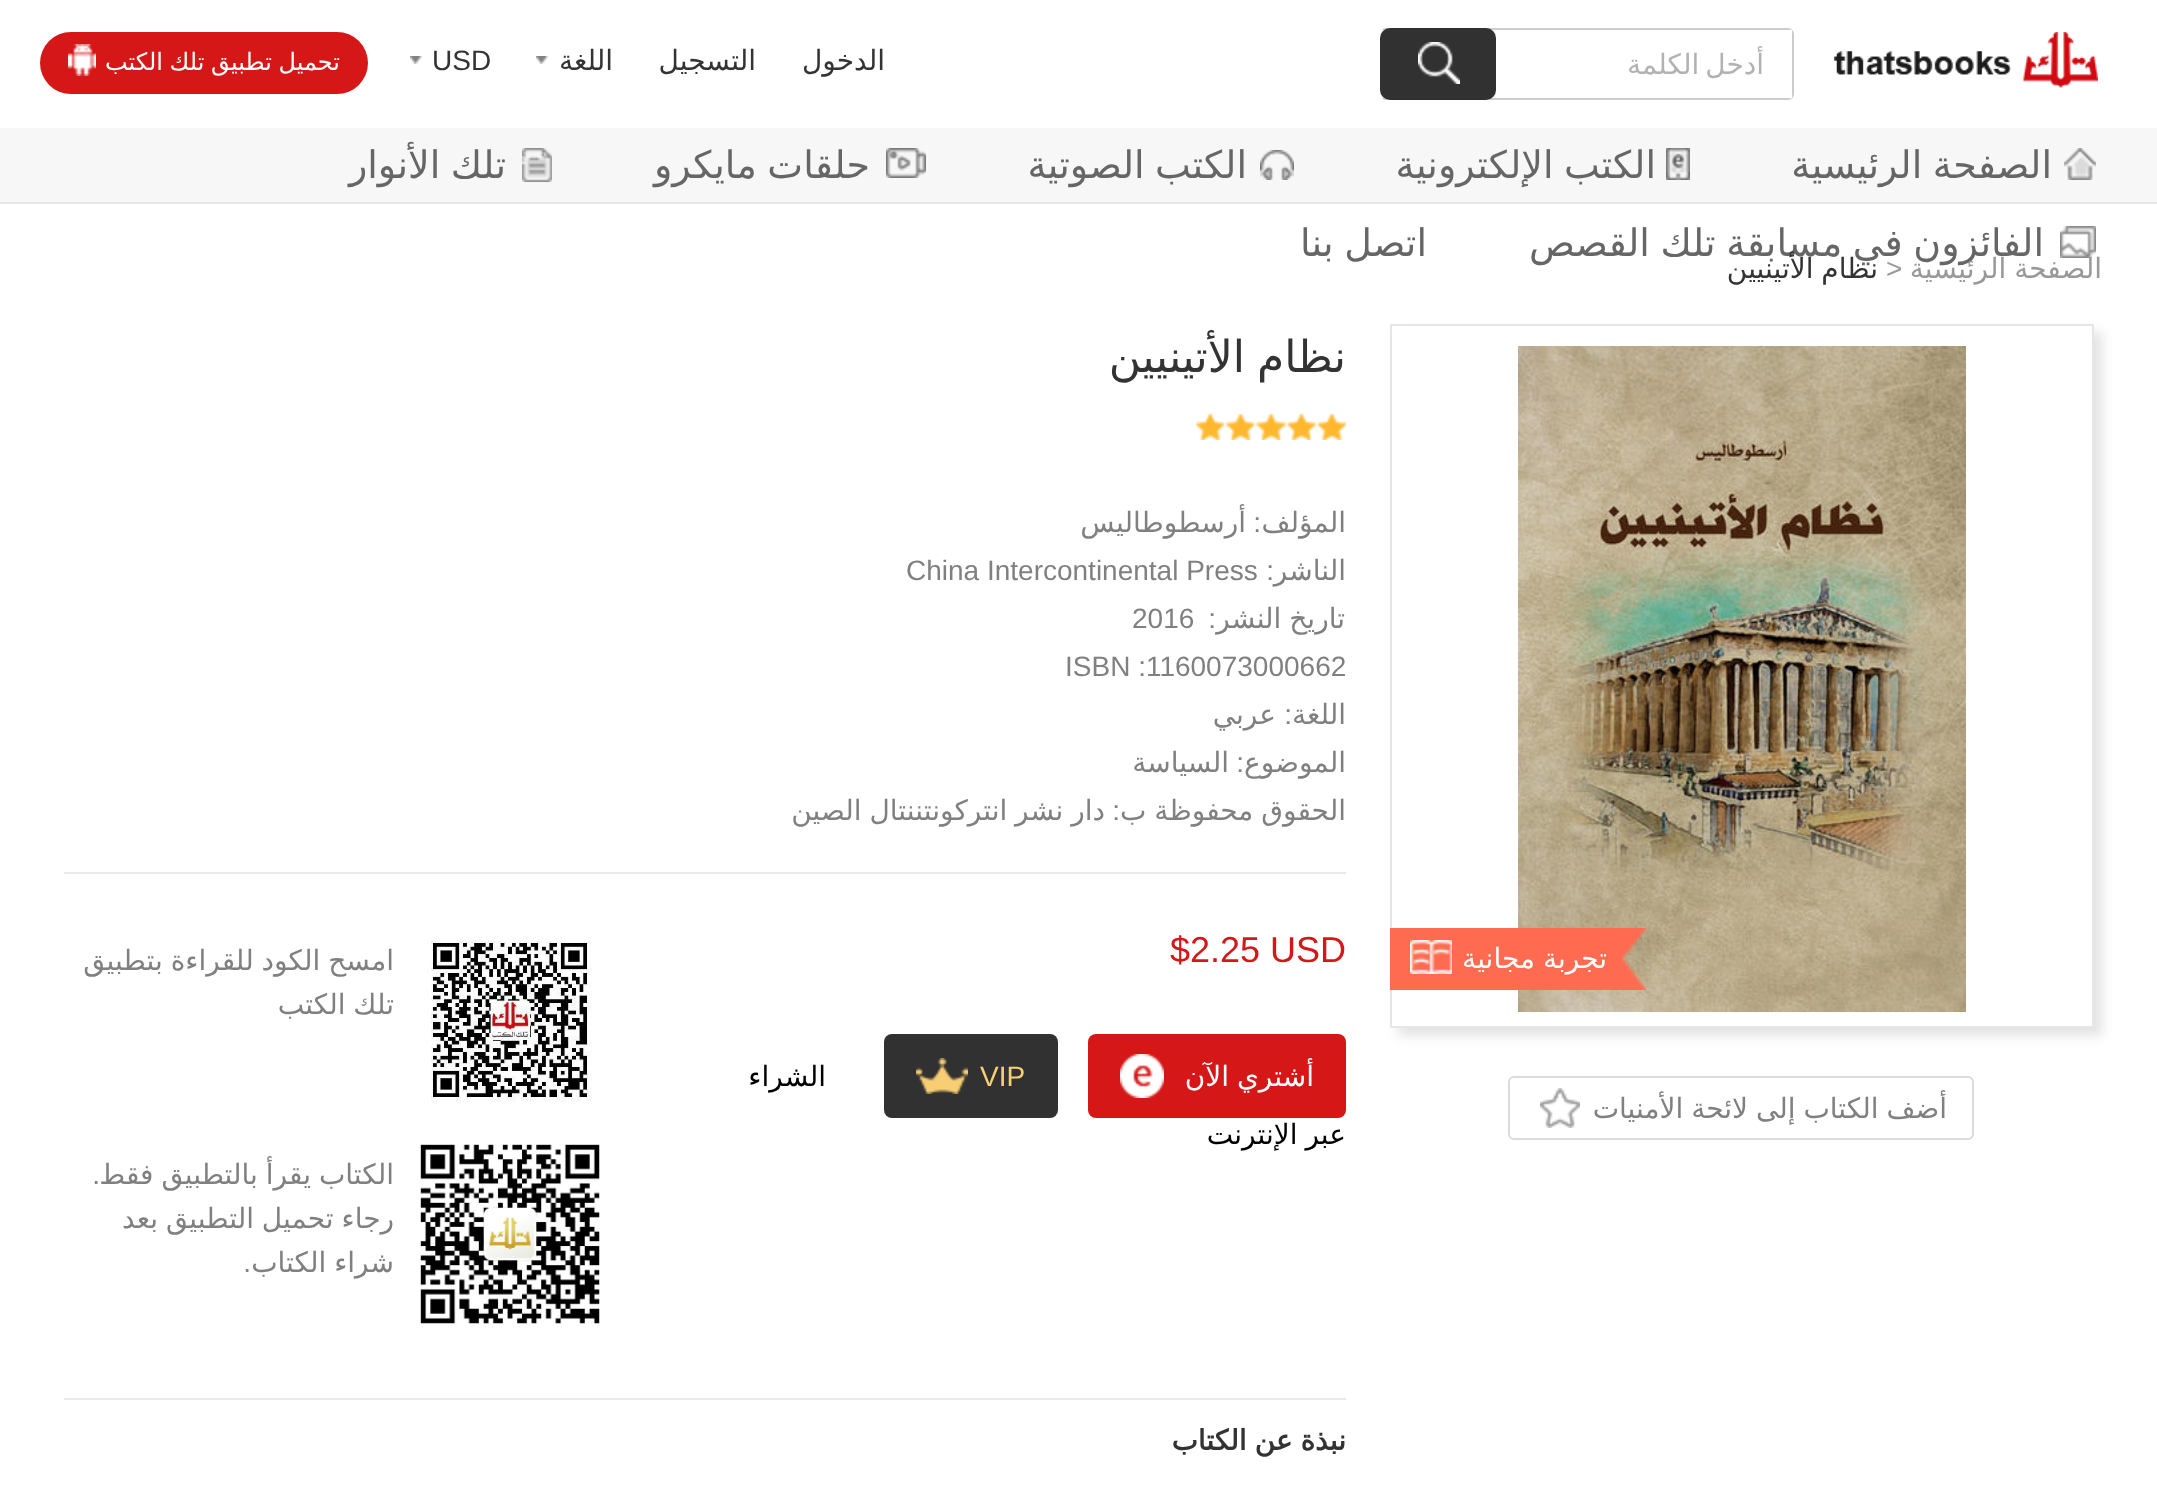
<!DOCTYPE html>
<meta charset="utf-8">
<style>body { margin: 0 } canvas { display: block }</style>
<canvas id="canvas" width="2157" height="1507"></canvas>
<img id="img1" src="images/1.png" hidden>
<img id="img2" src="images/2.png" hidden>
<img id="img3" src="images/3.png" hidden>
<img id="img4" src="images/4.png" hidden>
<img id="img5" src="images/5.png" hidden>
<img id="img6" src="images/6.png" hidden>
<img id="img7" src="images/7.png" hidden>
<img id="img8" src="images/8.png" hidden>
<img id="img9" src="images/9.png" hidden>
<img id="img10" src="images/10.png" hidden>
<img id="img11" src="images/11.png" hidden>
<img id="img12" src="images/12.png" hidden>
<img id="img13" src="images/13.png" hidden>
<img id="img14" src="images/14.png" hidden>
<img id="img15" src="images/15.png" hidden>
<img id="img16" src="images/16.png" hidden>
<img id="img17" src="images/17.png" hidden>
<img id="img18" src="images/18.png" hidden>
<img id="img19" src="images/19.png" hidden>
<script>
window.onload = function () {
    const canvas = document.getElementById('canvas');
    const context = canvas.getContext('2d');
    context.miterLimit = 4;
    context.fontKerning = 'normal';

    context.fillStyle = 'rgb(255, 255, 255)';
    context.fillRect(0, 0, 2157, 1507);
    context.drawImage(document.getElementById('img1'), 1834, 32, 264, 56);
    context.fillStyle = 'rgb(204, 204, 204)';
    context.beginPath();
    context.moveTo(1386, 28);
    context.lineTo(1788, 28);
    context.bezierCurveTo(1791, 28, 1794, 31, 1794, 34);
    context.lineTo(1794, 94);
    context.bezierCurveTo(1794, 97, 1791, 100, 1788, 100);
    context.lineTo(1386, 100);
    context.bezierCurveTo(1383, 100, 1380, 97, 1380, 94);
    context.lineTo(1380, 34);
    context.bezierCurveTo(1380, 31, 1383, 28, 1386, 28);
    context.closePath();
    context.moveTo(1386, 30);
    context.lineTo(1788, 30);
    context.bezierCurveTo(1790, 30, 1792, 32, 1792, 34);
    context.lineTo(1792, 94);
    context.bezierCurveTo(1792, 96, 1790, 98, 1788, 98);
    context.lineTo(1386, 98);
    context.bezierCurveTo(1383, 98, 1380, 96, 1380, 94);
    context.lineTo(1380, 34);
    context.bezierCurveTo(1380, 32, 1383, 30, 1386, 30);
    context.closePath();
    context.fill('evenodd');
    context.fillStyle = 'rgb(255, 255, 255)';
    context.fillRect(1380, 30, 412, 68);
    context.fillStyle = 'rgb(49, 49, 49)';
    context.beginPath();
    context.roundRect(1380, 28, 116, 72, 10);
    context.fill();
    context.drawImage(document.getElementById('img2'), 1418, 42, 42, 42);
    context.drawImage(document.getElementById('img3'), 536, 56, 12, 8);
    context.drawImage(document.getElementById('img3'), 410, 56, 12, 8);
    context.fillStyle = 'rgb(213, 23, 23)';
    context.beginPath();
    context.roundRect(40, 32, 328, 62, 31);
    context.fill();
    context.drawImage(document.getElementById('img4'), 68, 44, 28, 32);
    context.fillStyle = 'rgb(247, 247, 247)';
    context.fillRect(0, 128, 2157, 74);
    context.fillStyle = 'rgb(230, 230, 230)';
    context.fillRect(0, 202, 2157, 2);
    context.drawImage(document.getElementById('img5'), 2064, 148, 32, 32);
    context.drawImage(document.getElementById('img6'), 1666, 148, 24, 32);
    context.drawImage(document.getElementById('img7'), 1260, 150, 34, 30);
    context.drawImage(document.getElementById('img8'), 886, 148, 40, 30);
    context.drawImage(document.getElementById('img9'), 522, 148, 30, 34);
    context.drawImage(document.getElementById('img10'), 2060, 226, 36, 32);
    context.save();
    context.beginPath();
    context.moveTo(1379, 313);
    context.lineTo(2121, 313);
    context.lineTo(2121, 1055);
    context.lineTo(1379, 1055);
    context.closePath();
    context.moveTo(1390, 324);
    context.lineTo(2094, 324);
    context.lineTo(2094, 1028);
    context.lineTo(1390, 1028);
    context.closePath();
    context.clip('evenodd');
    context.fillStyle = 'rgba(0, 0, 0, 0.11)';
    context.filter = 'blur(6px)';
    context.beginPath();
    context.rect(1398, 332, 704, 704);
    context.fill();
    context.filter = 'none';
    context.restore();
    context.strokeStyle = 'rgb(230, 230, 230)';
    context.lineWidth = 2;
    context.strokeRect(1391, 325, 702, 702);
    context.drawImage(document.getElementById('img11'), 1518, 346, 448, 666);
    context.drawImage(document.getElementById('img12'), 1390, 928, 256, 62);
    context.drawImage(document.getElementById('img13'), 1410, 940, 42, 34);
    context.beginPath();
    context.roundRect(1509, 1077, 464, 62, 5);
    context.strokeStyle = 'rgb(219, 219, 219)';
    context.stroke();
    context.drawImage(document.getElementById('img14'), 1540, 1088, 40, 40);
    context.drawImage(document.getElementById('img15'), 1196, 414, 150, 26);
    context.fillStyle = 'rgb(235, 235, 235)';
    context.fillRect(64, 872, 1282, 2);
    context.fillRect(64, 1398, 1282, 2);
    context.fillStyle = 'rgb(213, 23, 23)';
    context.beginPath();
    context.roundRect(1088, 1034, 258, 84, 8);
    context.fill();
    context.drawImage(document.getElementById('img16'), 1120, 1054, 44, 44);
    context.fillStyle = 'rgb(49, 49, 49)';
    context.beginPath();
    context.roundRect(884, 1034, 174, 84, 8);
    context.fill();
    context.drawImage(document.getElementById('img17'), 916, 1058, 52, 36);
    context.drawImage(document.getElementById('img18'), 431, 941, 161, 161);
    context.drawImage(document.getElementById('img19'), 420, 1144, 180, 180);
    context.save();
    context.beginPath();
    context.rect(1496, 44, 268, 42);
    context.clip();
    context.wordSpacing = '-3px';
    context.direction = 'rtl';
    context.font = '28px DejaVu Sans';
    context.fillStyle = 'rgb(178, 178, 178)';
    context.fillText('أدخل الكلمة', 1764, 74);
    context.restore();
    context.direction = 'rtl';
    context.font = '28px DejaVu Sans';
    context.fillStyle = 'rgb(51, 51, 51)';
    context.fillText('الدخول', 885, 70);
    context.fillText('التسجيل', 756, 70);
    context.fillText('اللغة', 613, 70);
    context.direction = 'ltr';
    context.font = '28px Liberation Sans';
    context.fillText('USD', 432, 70);
    context.wordSpacing = '-1px';
    context.direction = 'rtl';
    context.font = '24px DejaVu Sans';
    context.fillStyle = 'rgb(255, 255, 255)';
    context.fillText('تحميل تطبيق تلك الكتب', 340, 70);
    context.wordSpacing = '-1.5px';
    context.font = '38px DejaVu Sans';
    context.fillStyle = 'rgb(102, 102, 102)';
    context.fillText('الصفحة الرئيسية', 2052, 178);
    context.fillText('الكتب الإلكترونية', 1656, 178);
    context.fillText('الكتب الصوتية', 1247, 178);
    context.fillText('حلقات مايكرو', 870, 178);
    context.fillText('تلك الأنوار', 506, 178);
    context.fillText('الفائزون في مسابقة تلك القصص', 2044, 256);
    context.fillText('اتصل بنا', 1427, 256);
    context.wordSpacing = '-1px';
    context.font = '28px DejaVu Sans';
    context.fillStyle = 'rgb(153, 153, 153)';
    context.fillText('الصفحة الرئيسية', 2102, 278);
    context.wordSpacing = '0px';
    context.direction = 'ltr';
    context.font = '28px Liberation Sans';
    context.fillText('>', 1886, 278);
    context.wordSpacing = '-1px';
    context.direction = 'rtl';
    context.font = '28px DejaVu Sans';
    context.fillStyle = 'rgb(51, 51, 51)';
    context.fillText('نظام الأتينيين', 1878, 278);
    context.fillStyle = 'rgb(255, 255, 255)';
    context.fillText('تجربة مجانية', 1607, 968);
    context.fillStyle = 'rgb(128, 128, 128)';
    context.fillText('أضف الكتاب إلى لائحة الأمنيات', 1947, 1118);
    context.wordSpacing = '-2px';
    context.font = '44px DejaVu Sans';
    context.fillStyle = 'rgb(51, 51, 51)';
    context.fillText('نظام الأتينيين', 1346, 372);
    context.wordSpacing = '0px';
    context.font = '28px DejaVu Sans';
    context.fillStyle = 'rgb(128, 128, 128)';
    context.fillText('المؤلف', 1346, 532);
    context.font = '28px Liberation Sans';
    context.fillText(':', 1261, 532);
    context.font = '28px DejaVu Sans';
    context.fillText('أرسطوطاليس', 1246, 532);
    context.fillText('الناشر', 1346, 580);
    context.font = '28px Liberation Sans';
    context.fillText(':', 1274, 580);
    context.direction = 'ltr';
    context.fillText('China Intercontinental Press', 906, 580);
    context.wordSpacing = '-1px';
    context.direction = 'rtl';
    context.font = '28px DejaVu Sans';
    context.fillText('تاريخ النشر', 1345, 628);
    context.wordSpacing = '0px';
    context.font = '28px Liberation Sans';
    context.fillText(':', 1216, 628);
    context.direction = 'ltr';
    context.fillText('2016', 1132, 628);
    context.fillText('ISBN :1160073000662', 1065, 676);
    context.direction = 'rtl';
    context.font = '28px DejaVu Sans';
    context.fillText('اللغة', 1346, 724);
    context.font = '28px Liberation Sans';
    context.fillText(':', 1292, 724);
    context.font = '28px DejaVu Sans';
    context.fillText('عربي', 1276, 724);
    context.fillText('الموضوع', 1346, 772);
    context.font = '28px Liberation Sans';
    context.fillText(':', 1244, 772);
    context.font = '28px DejaVu Sans';
    context.fillText('السياسة', 1229, 772);
    context.wordSpacing = '-1px';
    context.fillText('الحقوق محفوظة ب', 1346, 820);
    context.wordSpacing = '0px';
    context.font = '28px Liberation Sans';
    context.fillText(':', 1120, 820);
    context.wordSpacing = '-1px';
    context.font = '28px DejaVu Sans';
    context.fillText('دار نشر انتركونتننتال الصين', 1105, 820);
    context.wordSpacing = '0px';
    context.direction = 'ltr';
    context.font = '36px Liberation Sans';
    context.fillStyle = 'rgb(213, 23, 23)';
    context.fillText('$2.25 USD', 1170, 962);
    context.wordSpacing = '-1px';
    context.direction = 'rtl';
    context.font = '28px DejaVu Sans';
    context.fillStyle = 'rgb(255, 255, 255)';
    context.fillText('أشتري الآن', 1314, 1086);
    context.wordSpacing = '0px';
    context.direction = 'ltr';
    context.font = '28px Liberation Sans';
    context.fillStyle = 'rgb(248, 206, 117)';
    context.fillText('VIP', 980, 1086);
    context.direction = 'rtl';
    context.font = '28px DejaVu Sans';
    context.fillStyle = 'rgb(0, 0, 0)';
    context.fillText('الشراء', 826, 1086);
    context.wordSpacing = '-1px';
    context.fillText('عبر الإنترنت', 1346, 1144);
    context.fillStyle = 'rgb(128, 128, 128)';
    context.fillText('امسح الكود للقراءة بتطبيق', 394, 970);
    context.fillText('تلك الكتب', 394, 1014);
    context.fillText('الكتاب يقرأ بالتطبيق فقط', 394, 1184);
    context.wordSpacing = '0px';
    context.font = '28px Liberation Sans';
    context.fillText('.', 100, 1184);
    context.wordSpacing = '-1px';
    context.font = '28px DejaVu Sans';
    context.fillText('رجاء تحميل التطبيق بعد', 394, 1228);
    context.fillText('شراء الكتاب', 394, 1272);
    context.wordSpacing = '0px';
    context.font = '28px Liberation Sans';
    context.fillText('.', 251, 1272);
    context.wordSpacing = '-1px';
    context.font = 'bold 28px DejaVu Sans';
    context.fillStyle = 'rgb(51, 51, 51)';
    context.fillText('نبذة عن الكتاب', 1346, 1450);
};
</script>
